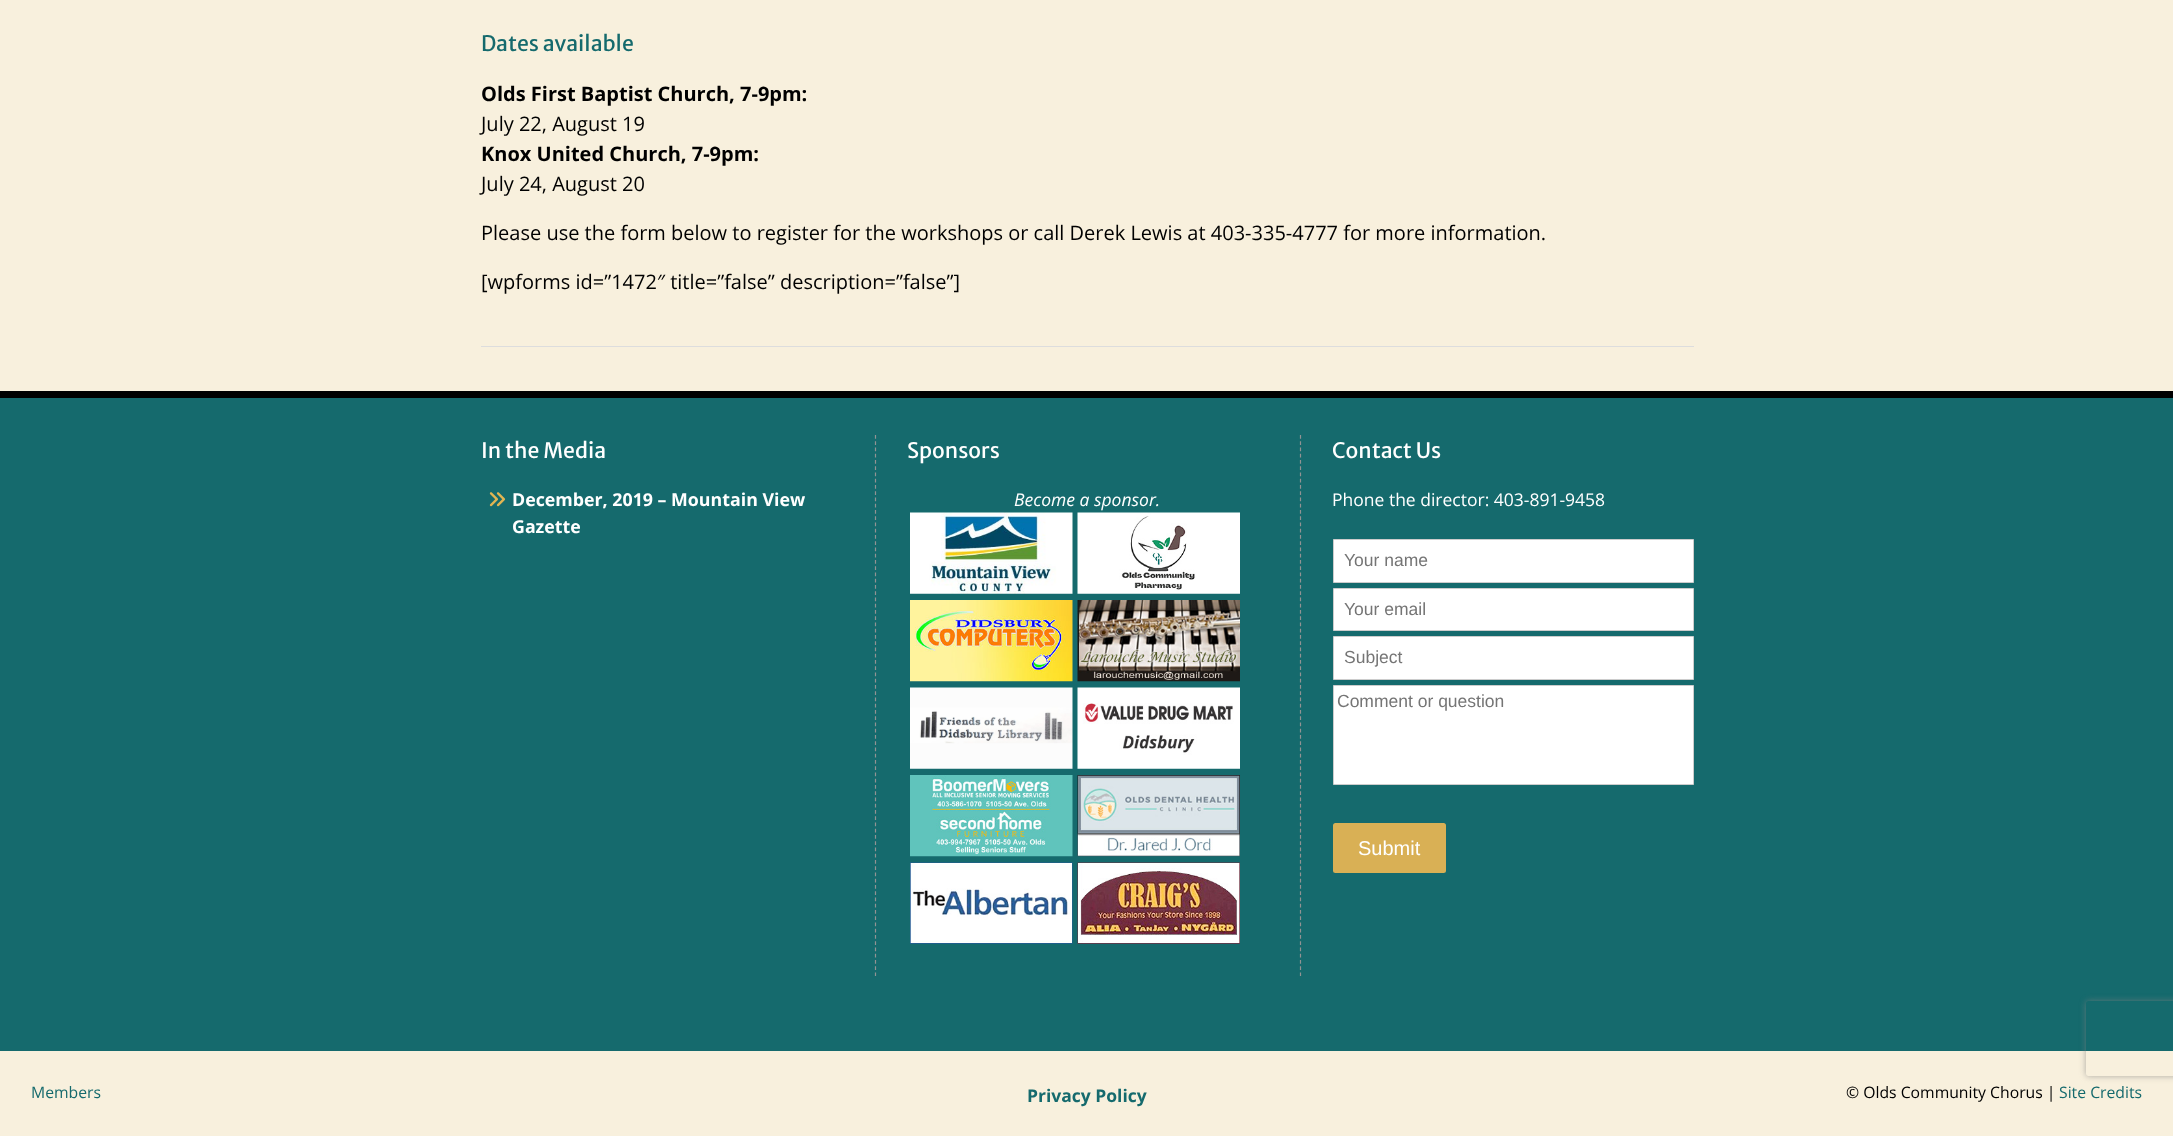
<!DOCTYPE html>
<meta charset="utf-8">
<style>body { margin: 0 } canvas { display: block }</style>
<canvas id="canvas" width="2173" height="1136"></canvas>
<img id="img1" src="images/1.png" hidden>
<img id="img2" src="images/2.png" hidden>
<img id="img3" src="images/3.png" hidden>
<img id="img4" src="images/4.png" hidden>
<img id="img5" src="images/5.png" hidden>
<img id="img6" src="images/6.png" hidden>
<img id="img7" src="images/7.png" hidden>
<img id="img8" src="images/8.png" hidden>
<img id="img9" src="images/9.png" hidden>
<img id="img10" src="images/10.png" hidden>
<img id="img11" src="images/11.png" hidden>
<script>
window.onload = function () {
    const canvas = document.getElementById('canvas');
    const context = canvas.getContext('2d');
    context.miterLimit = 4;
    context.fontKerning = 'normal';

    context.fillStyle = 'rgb(248, 240, 221)';
    context.fillRect(0, 0, 2173, 1136);
    context.fillStyle = 'rgb(221, 221, 221)';
    context.fillRect(481, 346, 1213, 1);
    context.fillStyle = 'rgb(21, 106, 109)';
    context.fillRect(0, 398, 2173, 653);
    context.fillStyle = 'rgb(0, 0, 0)';
    context.fillRect(0, 391, 2173, 7);
    context.drawImage(document.getElementById('img1'), 489, 492, 17, 15);
    context.beginPath();
    context.moveTo(875.5, 435);
    context.lineTo(875.5, 976);
    context.strokeStyle = 'rgb(147, 147, 147)';
    context.lineWidth = 1.2;
    context.setLineDash([3.75, 2.5]);
    context.stroke();
    context.drawImage(document.getElementById('img2'), 910, 512, 163, 82);
    context.drawImage(document.getElementById('img3'), 1077, 512, 163, 82);
    context.drawImage(document.getElementById('img4'), 910, 600, 163, 82);
    context.drawImage(document.getElementById('img5'), 1077, 600, 163, 82);
    context.drawImage(document.getElementById('img6'), 910, 687, 163, 82);
    context.drawImage(document.getElementById('img7'), 1077, 687, 163, 82);
    context.drawImage(document.getElementById('img8'), 910, 775, 163, 82);
    context.drawImage(document.getElementById('img9'), 1077, 775, 163, 82);
    context.drawImage(document.getElementById('img10'), 910, 862, 163, 82);
    context.drawImage(document.getElementById('img11'), 1077, 862, 163, 82);
    context.beginPath();
    context.moveTo(1300.5, 435);
    context.lineTo(1300.5, 976);
    context.stroke();
    context.fillStyle = 'rgb(255, 255, 255)';
    context.beginPath();
    context.rect(1333.5, 539.5, 360, 43);
    context.fill();
    context.strokeStyle = 'rgb(204, 204, 204)';
    context.lineWidth = 1;
    context.setLineDash([]);
    context.stroke();
    context.beginPath();
    context.rect(1333.5, 588.5, 360, 42);
    context.fill();
    context.stroke();
    context.beginPath();
    context.rect(1333.5, 636.5, 360, 43);
    context.fill();
    context.stroke();
    context.beginPath();
    context.rect(1333.5, 685.5, 360, 99);
    context.fill();
    context.stroke();
    context.fillStyle = 'rgb(217, 176, 85)';
    context.beginPath();
    context.roundRect(1333, 823, 113, 50, 2.5);
    context.fill();
    context.save();
    context.beginPath();
    context.moveTo(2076, 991);
    context.lineTo(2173, 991);
    context.lineTo(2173, 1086);
    context.lineTo(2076, 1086);
    context.closePath();
    context.moveTo(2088.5, 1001);
    context.lineTo(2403.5, 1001);
    context.bezierCurveTo(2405, 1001, 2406, 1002, 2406, 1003.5);
    context.lineTo(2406, 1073.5);
    context.bezierCurveTo(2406, 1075, 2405, 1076, 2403.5, 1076);
    context.lineTo(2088.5, 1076);
    context.bezierCurveTo(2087, 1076, 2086, 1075, 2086, 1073.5);
    context.lineTo(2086, 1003.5);
    context.bezierCurveTo(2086, 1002, 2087, 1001, 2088.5, 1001);
    context.closePath();
    context.clip('evenodd');
    context.fillStyle = 'rgba(128, 128, 128, 0.65)';
    context.filter = 'blur(3px)';
    context.beginPath();
    context.roundRect(2086, 1001, 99, 75, 2.5);
    context.fill();
    context.filter = 'none';
    context.restore();
    context.font = '21.25px Merriweather Sans';
    context.fillStyle = 'rgb(21, 106, 109)';
    context.fillText('Dates available', 481, 51);
    context.font = 'bold 20px Open Sans';
    context.fillStyle = 'rgb(0, 0, 0)';
    context.fillText('Olds First Baptist Church, 7-9pm:', 481, 101);
    context.font = '20px Open Sans';
    context.fillText('July 22, August 19', 481, 131);
    context.font = 'bold 20px Open Sans';
    context.fillText('Knox United Church, 7-9pm:', 481, 161);
    context.font = '20px Open Sans';
    context.fillText('July 24, August 20', 481, 191);
    context.fillText('Please use the form below to register for the workshops or call Derek Lewis at 403-335-4777 for more information.', 481, 240);
    context.fillText('[wpforms id=”1472″ title=”false” description=”false”]', 481, 289);
    context.font = '21.25px Merriweather Sans';
    context.fillStyle = 'rgb(255, 255, 255)';
    context.fillText('In the Media', 481, 458);
    context.font = 'bold 17.8px Open Sans';
    context.fillText('December, 2019 – Mountain View', 512, 506);
    context.fillText('Gazette', 512, 533);
    context.font = '21.25px Merriweather Sans';
    context.fillText('Sponsors', 907, 458);
    context.font = 'italic 17.5px Open Sans';
    context.fillText('Become a sponsor.', 1014, 506);
    context.font = '21.25px Merriweather Sans';
    context.fillText('Contact Us', 1332, 458);
    context.font = '17.5px Open Sans';
    context.fillText('Phone the director: 403-891-9458', 1332, 506);
    context.font = '17.5px Liberation Sans';
    context.fillStyle = 'rgb(117, 117, 117)';
    context.fillText('Your name', 1344, 566);
    context.fillText('Your email', 1344, 615);
    context.fillText('Subject', 1344, 663);
    context.fillText('Comment or question', 1337, 707);
    context.font = '20px Liberation Sans';
    context.fillStyle = 'rgb(255, 255, 255)';
    context.fillText('Submit', 1358, 855);
    context.font = '15.75px Open Sans';
    context.fillStyle = 'rgb(21, 106, 109)';
    context.fillText('Members', 31, 1098);
    context.font = 'bold 17.5px Open Sans';
    context.fillText('Privacy Policy', 1027, 1102);
    context.font = '15.75px Open Sans';
    context.fillStyle = 'rgb(0, 0, 0)';
    context.fillText('© Olds Community Chorus |', 1846, 1098);
    context.fillStyle = 'rgb(21, 106, 109)';
    context.fillText('Site Credits', 2059, 1098);
};
</script>
